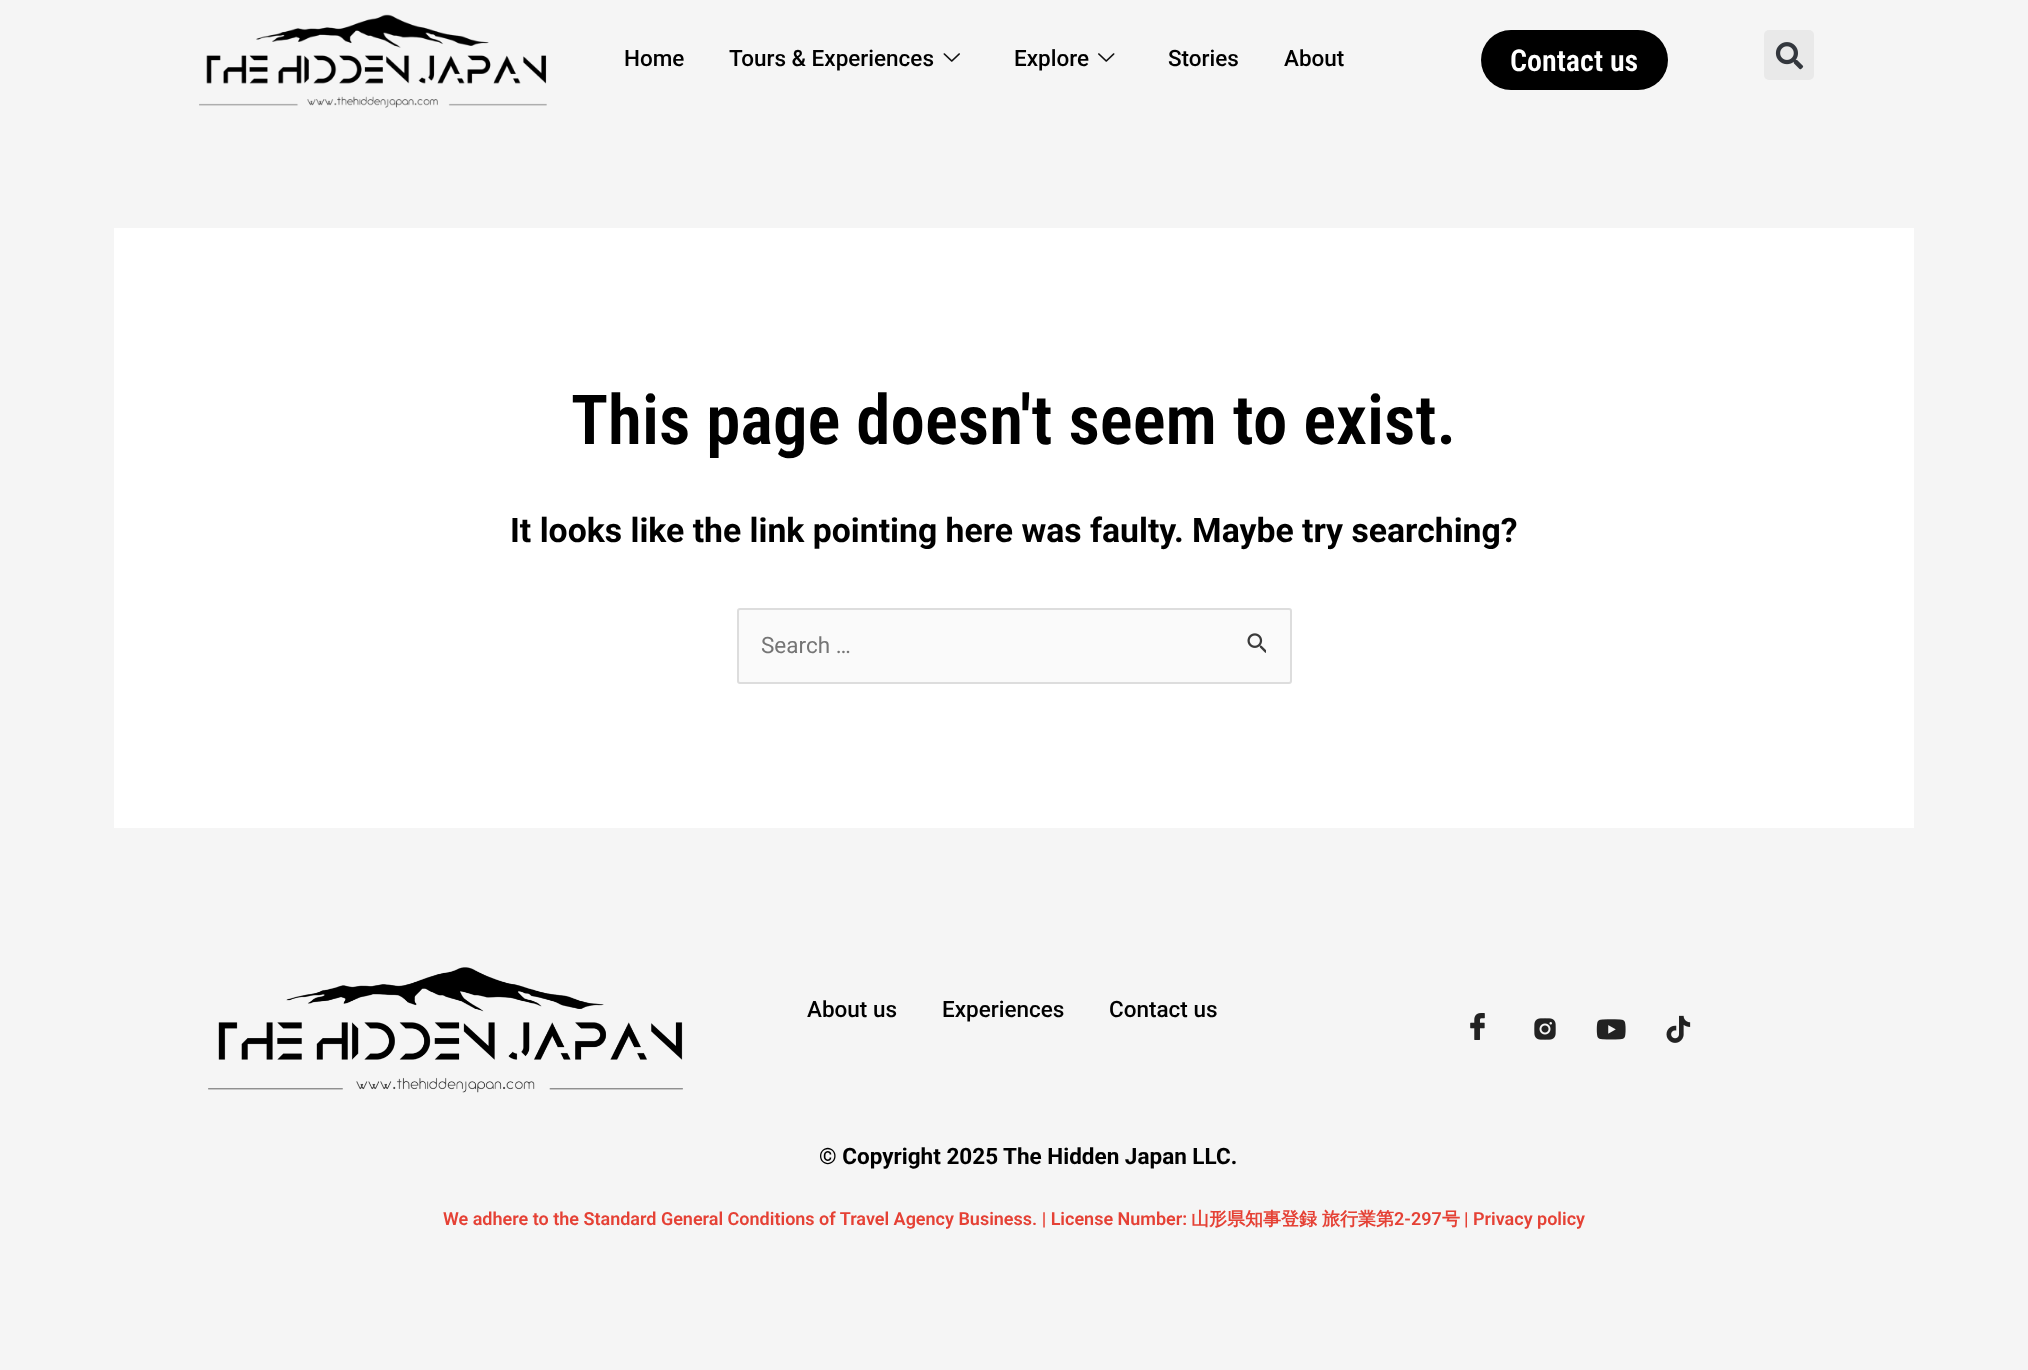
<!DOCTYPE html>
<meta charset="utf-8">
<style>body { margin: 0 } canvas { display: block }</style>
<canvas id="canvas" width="2028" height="1370"></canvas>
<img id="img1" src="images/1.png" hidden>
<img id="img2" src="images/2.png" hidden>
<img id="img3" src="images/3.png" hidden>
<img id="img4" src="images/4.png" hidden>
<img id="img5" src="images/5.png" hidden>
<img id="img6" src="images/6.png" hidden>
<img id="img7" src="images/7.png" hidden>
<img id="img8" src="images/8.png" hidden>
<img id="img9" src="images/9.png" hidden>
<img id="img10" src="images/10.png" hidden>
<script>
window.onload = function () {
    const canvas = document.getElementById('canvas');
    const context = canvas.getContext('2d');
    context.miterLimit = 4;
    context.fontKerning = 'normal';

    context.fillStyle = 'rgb(245, 245, 245)';
    context.fillRect(0, 0, 2028, 1370);
    context.drawImage(document.getElementById('img1'), 199, 14, 348, 94);
    context.drawImage(document.getElementById('img2'), 943, 53, 17, 9);
    context.drawImage(document.getElementById('img3'), 1098, 53, 17, 9);
    context.fillStyle = 'rgb(0, 0, 0)';
    context.beginPath();
    context.roundRect(1481, 30, 187, 60, 30);
    context.fill();
    context.fillStyle = 'rgb(233, 233, 233)';
    context.beginPath();
    context.roundRect(1764, 30, 50, 50, 5);
    context.fill();
    context.drawImage(document.getElementById('img4'), 1775, 42, 29, 28);
    context.fillStyle = 'rgb(255, 255, 255)';
    context.fillRect(114, 228, 1800, 600);
    context.fillStyle = 'rgb(250, 250, 250)';
    context.beginPath();
    context.roundRect(738, 609, 553, 74, 2);
    context.fill();
    context.strokeStyle = 'rgb(221, 221, 221)';
    context.lineWidth = 2;
    context.stroke();
    context.drawImage(document.getElementById('img5'), 1247, 633, 19, 20);
    context.drawImage(document.getElementById('img6'), 208, 967, 475, 126);
    context.drawImage(document.getElementById('img7'), 1470, 1013, 15, 27);
    context.drawImage(document.getElementById('img8'), 1534, 1018, 22, 22);
    context.drawImage(document.getElementById('img9'), 1596, 1019, 30, 21);
    context.drawImage(document.getElementById('img10'), 1666, 1015, 25, 28);
    context.font = '500 22.5px Roboto';
    context.fillStyle = 'rgb(0, 0, 0)';
    context.fillText('Home', 624, 66);
    context.fillText('Tours & Experiences', 729, 66);
    context.fillText('Explore', 1014, 66);
    context.fillText('Stories', 1168, 66);
    context.fillText('About', 1284, 66);
    context.font = '600 30px Roboto Condensed';
    context.fillStyle = 'rgb(255, 255, 255)';
    context.fillText('Contact us', 1510, 71);
    context.font = '600 69px Roboto Condensed';
    context.fillStyle = 'rgb(0, 0, 0)';
    context.fillText('This page doesn\'t seem to exist.', 571, 444);
    context.font = 'bold 33.75px Roboto';
    context.fillText('It looks like the link pointing here was faulty. Maybe try searching?', 510, 542);
    context.font = '22.5px Roboto';
    context.fillStyle = 'rgb(117, 117, 117)';
    context.fillText('Search …', 761, 653);
    context.font = '500 22.5px Roboto';
    context.fillStyle = 'rgb(0, 0, 0)';
    context.fillText('About us', 807, 1017);
    context.fillText('Experiences', 942, 1017);
    context.fillText('Contact us', 1109, 1017);
    context.font = 'bold 22.5px Roboto';
    context.fillText('© Copyright 2025 The Hidden Japan LLC.', 819, 1164);
    context.font = '600 18px Roboto';
    context.fillStyle = 'rgb(229, 65, 53)';
    context.fillText('We adhere to the Standard General Conditions of Travel Agency Business. | License Number:', 443, 1225);
    context.font = 'bold 18px WenQuanYi Zen Hei';
    context.fillText('山形県知事登録', 1191, 1225);
    context.fillText('旅行業第', 1322, 1225);
    context.font = '600 18px Roboto';
    context.fillText('2-297', 1394, 1225);
    context.font = 'bold 18px WenQuanYi Zen Hei';
    context.fillText('号', 1442, 1225);
    context.font = '600 18px Roboto';
    context.fillText('| Privacy policy', 1464, 1225);
};
</script>
